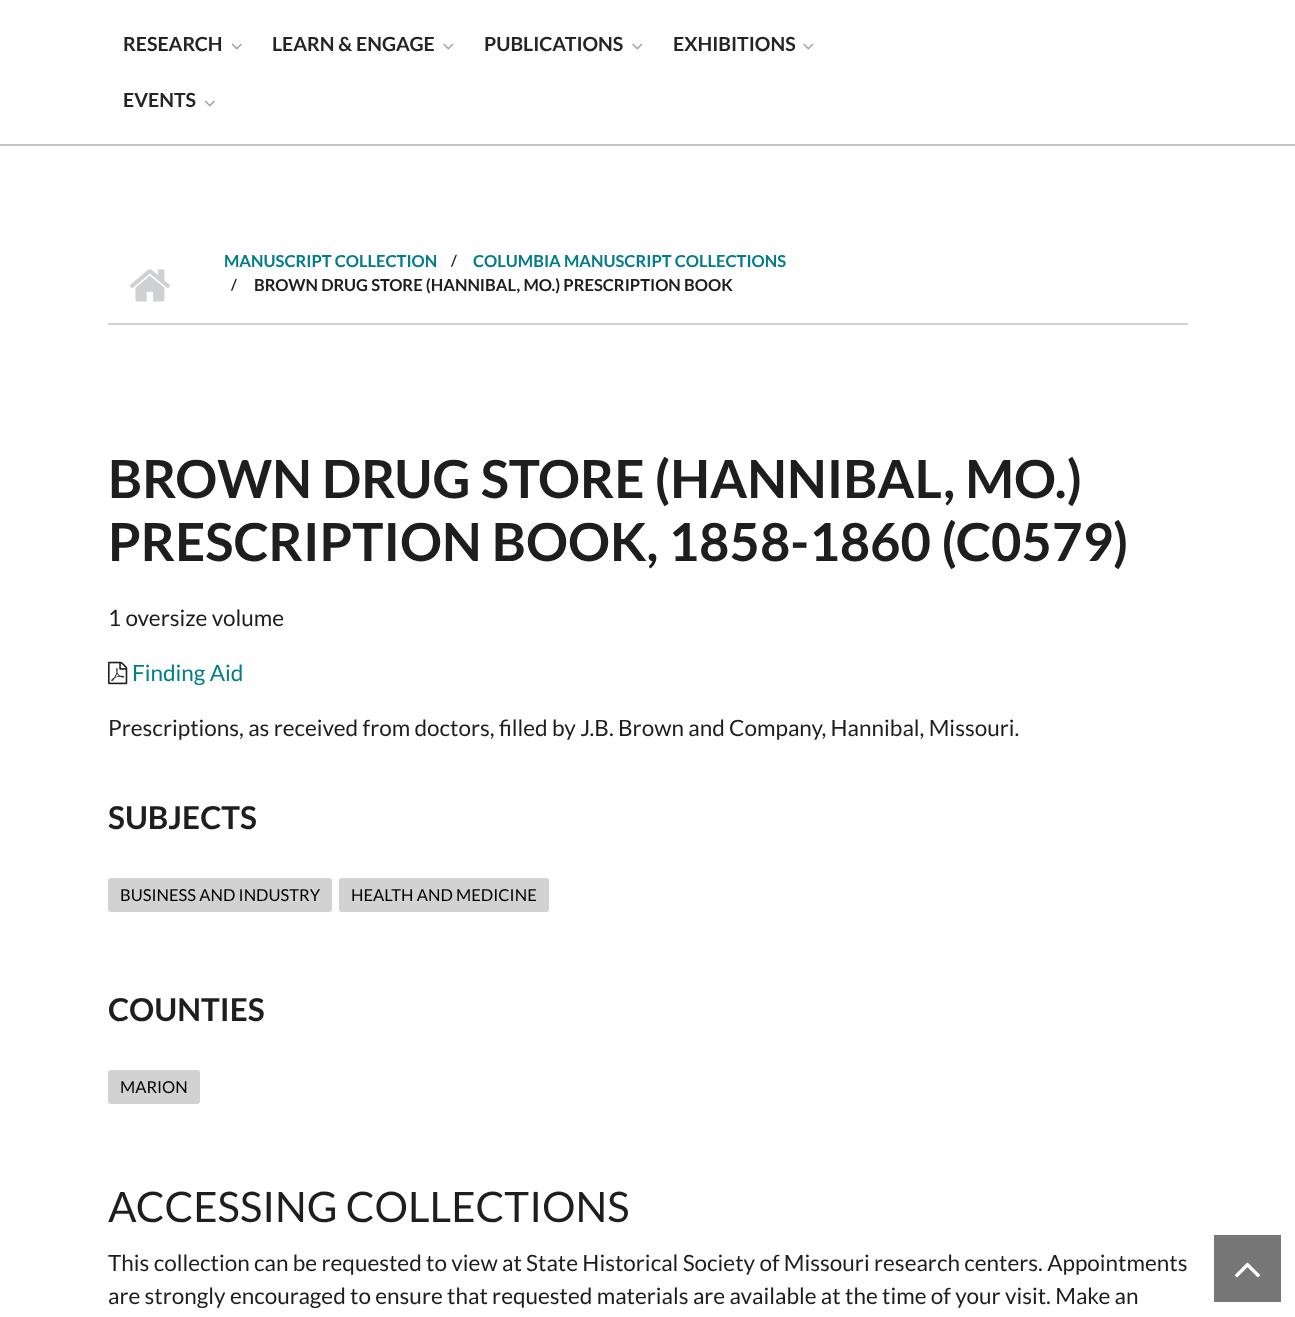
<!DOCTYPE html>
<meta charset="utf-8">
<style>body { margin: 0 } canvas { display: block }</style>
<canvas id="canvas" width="1295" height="1317"></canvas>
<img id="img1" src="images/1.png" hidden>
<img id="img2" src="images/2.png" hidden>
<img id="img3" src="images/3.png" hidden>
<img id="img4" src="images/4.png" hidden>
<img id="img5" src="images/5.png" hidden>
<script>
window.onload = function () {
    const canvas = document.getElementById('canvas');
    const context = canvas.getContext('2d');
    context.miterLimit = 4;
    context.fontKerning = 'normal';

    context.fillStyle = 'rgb(255, 255, 255)';
    context.fillRect(0, 0, 1295, 1317);
    context.fillStyle = 'rgb(194, 194, 194)';
    context.fillRect(0, 144, 1295, 2);
    context.drawImage(document.getElementById('img1'), 231, 43, 11, 7);
    context.drawImage(document.getElementById('img2'), 443, 43, 11, 7);
    context.drawImage(document.getElementById('img2'), 632, 43, 11, 7);
    context.drawImage(document.getElementById('img2'), 803, 43, 11, 7);
    context.drawImage(document.getElementById('img1'), 204, 100, 11, 7);
    context.fillStyle = 'rgb(207, 208, 210)';
    context.fillRect(108, 323, 1080, 2);
    context.drawImage(document.getElementById('img3'), 129, 269, 41, 33);
    context.drawImage(document.getElementById('img4'), 108, 661, 20, 24);
    context.fillStyle = 'rgb(210, 210, 210)';
    context.beginPath();
    context.roundRect(108, 878, 224, 34, 3);
    context.fill();
    context.beginPath();
    context.roundRect(339, 878, 210, 34, 3);
    context.fill();
    context.beginPath();
    context.roundRect(108, 1070, 92, 34, 3);
    context.fill();
    context.fillStyle = 'rgb(119, 119, 119)';
    context.fillRect(1214, 1235, 67, 67);
    context.drawImage(document.getElementById('img5'), 1235, 1262, 25, 16);
    context.font = 'bold 19.5px Lato';
    context.fillStyle = 'rgb(37, 37, 37)';
    context.fillText('RESEARCH', 123, 51);
    context.fillText('LEARN & ENGAGE', 272, 51);
    context.fillText('PUBLICATIONS', 484, 51);
    context.fillText('EXHIBITIONS', 673, 51);
    context.fillText('EVENTS', 123, 107);
    context.font = 'bold 16.5px Lato';
    context.fillStyle = 'rgb(0, 124, 138)';
    context.fillText('MANUSCRIPT COLLECTION', 224, 267);
    context.font = 'bold 15px Lato';
    context.fillStyle = 'rgb(30, 30, 30)';
    context.fillText('/', 451, 266);
    context.font = 'bold 16.5px Lato';
    context.fillStyle = 'rgb(0, 124, 138)';
    context.fillText('COLUMBIA MANUSCRIPT COLLECTIONS', 473, 267);
    context.font = 'bold 15px Lato';
    context.fillStyle = 'rgb(30, 30, 30)';
    context.fillText('/', 231, 290);
    context.font = 'bold 16.5px Lato';
    context.fillText('BROWN DRUG STORE (HANNIBAL, MO.) PRESCRIPTION BOOK', 254, 291);
    context.font = 'bold 52.5px Lato';
    context.fillText('BROWN DRUG STORE (HANNIBAL, MO.)', 108, 498);
    context.fillText('PRESCRIPTION BOOK, 1858-1860 (C0579)', 108, 561);
    context.font = '22.5px Lato';
    context.fillText('1 oversize volume', 108, 626);
    context.fillStyle = 'rgb(0, 124, 138)';
    context.fillText('Finding Aid', 132, 681);
    context.fillStyle = 'rgb(30, 30, 30)';
    context.fillText('Prescriptions, as received from doctors, filled by J.B. Brown and Company, Hannibal, Missouri.', 108, 736);
    context.font = 'bold 31.5px Lato';
    context.fillText('SUBJECTS', 108, 829);
    context.font = '16.5px Lato';
    context.fillStyle = 'rgb(0, 0, 0)';
    context.fillText('BUSINESS AND INDUSTRY', 120, 901);
    context.fillText('HEALTH AND MEDICINE', 351, 901);
    context.font = 'bold 31.5px Lato';
    context.fillStyle = 'rgb(30, 30, 30)';
    context.fillText('COUNTIES', 108, 1021);
    context.font = '16.5px Lato';
    context.fillStyle = 'rgb(0, 0, 0)';
    context.fillText('MARION', 120, 1093);
    context.font = '42px Lato';
    context.fillStyle = 'rgb(30, 30, 30)';
    context.fillText('ACCESSING COLLECTIONS', 108, 1222);
    context.font = '22.5px Lato';
    context.fillText('This collection can be requested to view at State Historical Society of Missouri research centers. Appointments', 108, 1271);
    context.fillText('are strongly encouraged to ensure that requested materials are available at the time of your visit. Make an', 108, 1304);
};
</script>
